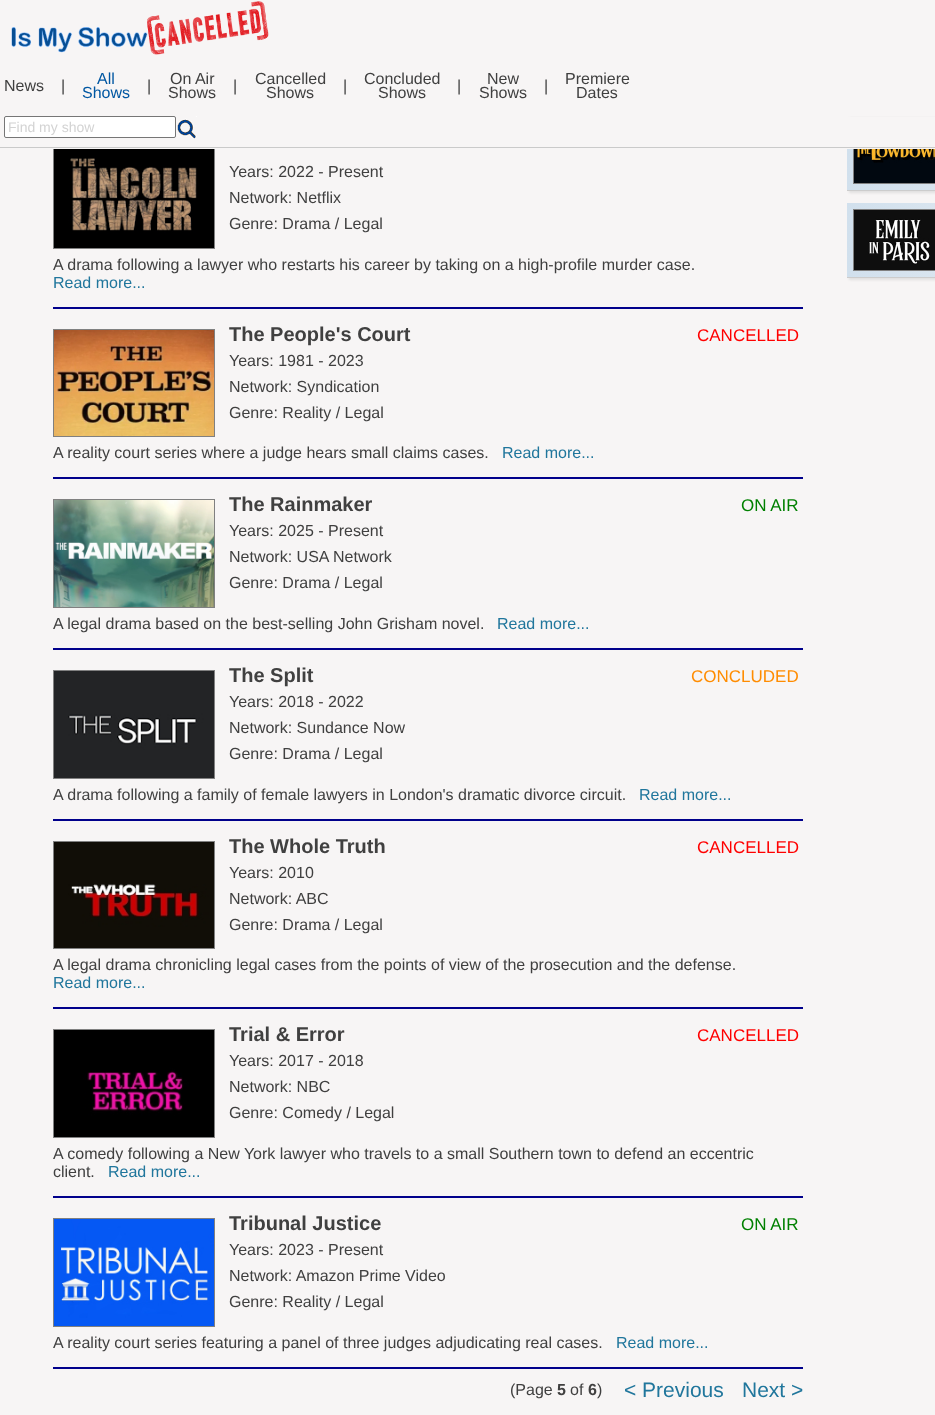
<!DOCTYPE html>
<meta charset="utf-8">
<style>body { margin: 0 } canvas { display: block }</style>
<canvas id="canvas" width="935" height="1415"></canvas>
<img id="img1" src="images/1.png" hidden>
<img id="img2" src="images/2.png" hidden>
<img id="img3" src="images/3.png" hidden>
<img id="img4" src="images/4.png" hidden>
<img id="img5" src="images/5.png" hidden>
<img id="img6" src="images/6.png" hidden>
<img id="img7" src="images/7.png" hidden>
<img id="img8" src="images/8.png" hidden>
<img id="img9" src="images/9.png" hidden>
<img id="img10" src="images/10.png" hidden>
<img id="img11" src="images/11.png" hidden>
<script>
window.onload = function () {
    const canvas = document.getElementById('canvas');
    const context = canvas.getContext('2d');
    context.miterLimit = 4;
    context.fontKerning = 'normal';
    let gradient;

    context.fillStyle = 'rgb(247, 245, 245)';
    context.fillRect(0, 0, 935, 1415);
    context.strokeStyle = 'rgb(128, 128, 128)';
    context.strokeRect(53.5, 140.5, 161, 108);
    context.fillStyle = 'rgba(204, 204, 204, 0.5)';
    context.filter = 'blur(1px)';
    context.beginPath();
    context.rect(849, 118, 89, 75);
    context.fill();
    context.filter = 'none';
    gradient = context.createLinearGradient(847, 153, 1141, 153);
    gradient.addColorStop(0, 'rgb(209, 224, 237)');
    gradient.addColorStop(1, 'rgb(235, 239, 243)');
    context.fillStyle = gradient;
    context.fillRect(847, 149, 88, 41);
    context.strokeRect(853.5, 122.5, 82, 61);
    context.fillStyle = 'rgb(247, 245, 245)';
    context.fillRect(53, 117, 882, 32);
    context.drawImage(document.getElementById('img1'), 11, 1, 258, 54);
    context.fillStyle = 'rgb(255, 255, 255)';
    context.beginPath();
    context.roundRect(4.5, 116.5, 171, 21, 1.5);
    context.fill();
    context.strokeStyle = 'rgb(118, 118, 118)';
    context.stroke();
    context.drawImage(document.getElementById('img2'), 177, 116, 20, 23);
    context.fillStyle = 'rgb(202, 202, 202)';
    context.fillRect(0, 147, 935, 1);
    context.fillStyle = 'rgb(0, 0, 139)';
    context.fillRect(53, 307, 750, 2);
    context.drawImage(document.getElementById('img3'), 54, 149, 160, 99);
    context.fillRect(53, 477, 750, 2);
    context.strokeStyle = 'rgb(128, 128, 128)';
    context.strokeRect(53.5, 329.5, 161, 107);
    context.drawImage(document.getElementById('img4'), 54, 330, 160, 106);
    context.fillRect(53, 648, 750, 2);
    context.strokeRect(53.5, 499.5, 161, 108);
    context.drawImage(document.getElementById('img5'), 54, 500, 160, 107);
    context.fillRect(53, 819, 750, 2);
    context.strokeRect(53.5, 670.5, 161, 108);
    context.drawImage(document.getElementById('img6'), 54, 671, 160, 107);
    context.fillRect(53, 1007, 750, 2);
    context.strokeRect(53.5, 841.5, 161, 107);
    context.drawImage(document.getElementById('img7'), 54, 842, 160, 106);
    context.fillRect(53, 1196, 750, 2);
    context.strokeRect(53.5, 1029.5, 161, 108);
    context.drawImage(document.getElementById('img8'), 54, 1030, 160, 107);
    context.fillRect(53, 1367, 750, 2);
    context.strokeRect(53.5, 1218.5, 161, 108);
    context.drawImage(document.getElementById('img9'), 54, 1219, 160, 107);
    context.fillStyle = 'rgb(204, 204, 204)';
    context.fillRect(847, 190, 88, 1);
    context.drawImage(document.getElementById('img10'), 854, 149, 81, 34);
    context.fillStyle = 'rgba(204, 204, 204, 0.5)';
    context.filter = 'blur(1px)';
    context.beginPath();
    context.rect(849, 205, 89, 75);
    context.fill();
    context.filter = 'none';
    gradient = context.createLinearGradient(847, 240, 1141, 240);
    gradient.addColorStop(0, 'rgb(209, 224, 237)');
    gradient.addColorStop(1, 'rgb(235, 239, 243)');
    context.fillStyle = gradient;
    context.fillRect(847, 203, 88, 74);
    context.fillStyle = 'rgb(204, 204, 204)';
    context.fillRect(847, 277, 88, 1);
    context.strokeRect(853.5, 209.5, 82, 61);
    context.drawImage(document.getElementById('img11'), 854, 210, 81, 60);
    context.font = '16px Liberation Sans';
    context.fillStyle = 'rgb(64, 64, 64)';
    context.fillText('News', 4, 91);
    context.fillText('|', 61, 91);
    context.fillStyle = 'rgb(0, 87, 162)';
    context.fillText('All', 97, 84);
    context.fillText('Shows', 82, 98);
    context.fillStyle = 'rgb(64, 64, 64)';
    context.fillText('|', 147, 91);
    context.fillText('On Air', 170, 84);
    context.fillText('Shows', 168, 98);
    context.fillText('|', 233, 91);
    context.fillText('Cancelled', 255, 84);
    context.fillText('Shows', 266, 98);
    context.fillText('|', 343, 91);
    context.fillText('Concluded', 364, 84);
    context.fillText('Shows', 378, 98);
    context.fillText('|', 457, 91);
    context.fillText('New', 487, 84);
    context.fillText('Shows', 479, 98);
    context.fillText('|', 544, 91);
    context.fillText('Premiere', 565, 84);
    context.fillText('Dates', 576, 98);
    context.font = '14px Liberation Sans';
    context.fillStyle = 'rgb(211, 211, 211)';
    context.fillText('Find my show', 8, 132);
    context.font = '16px Liberation Sans';
    context.fillStyle = 'rgb(64, 64, 64)';
    context.fillText('Years: 2022 - Present', 229, 177);
    context.fillText('Network: Netflix', 229, 203);
    context.fillText('Genre: Drama / Legal', 229, 229);
    context.fillText('A drama following a lawyer who restarts his career by taking on a high-profile murder case.', 53, 270);
    context.fillStyle = 'rgb(32, 118, 156)';
    context.fillText('Read more...', 53, 288);
    context.font = 'bold 20px Liberation Sans';
    context.fillStyle = 'rgb(64, 64, 64)';
    context.fillText('The People\'s Court', 229, 341);
    context.font = '17px Liberation Sans';
    context.fillStyle = 'rgb(255, 0, 0)';
    context.fillText('CANCELLED', 697, 341);
    context.font = '16px Liberation Sans';
    context.fillStyle = 'rgb(64, 64, 64)';
    context.fillText('Years: 1981 - 2023', 229, 366);
    context.fillText('Network: Syndication', 229, 392);
    context.fillText('Genre: Reality / Legal', 229, 418);
    context.fillText('A reality court series where a judge hears small claims cases.', 53, 458);
    context.fillStyle = 'rgb(32, 118, 156)';
    context.fillText('Read more...', 502, 458);
    context.font = 'bold 20px Liberation Sans';
    context.fillStyle = 'rgb(64, 64, 64)';
    context.fillText('The Rainmaker', 229, 511);
    context.font = '17px Liberation Sans';
    context.fillStyle = 'rgb(0, 128, 0)';
    context.fillText('ON AIR', 741, 511);
    context.font = '16px Liberation Sans';
    context.fillStyle = 'rgb(64, 64, 64)';
    context.fillText('Years: 2025 - Present', 229, 536);
    context.fillText('Network: USA Network', 229, 562);
    context.fillText('Genre: Drama / Legal', 229, 588);
    context.fillText('A legal drama based on the best-selling John Grisham novel.', 53, 629);
    context.fillStyle = 'rgb(32, 118, 156)';
    context.fillText('Read more...', 497, 629);
    context.font = 'bold 20px Liberation Sans';
    context.fillStyle = 'rgb(64, 64, 64)';
    context.fillText('The Split', 229, 682);
    context.font = '17px Liberation Sans';
    context.fillStyle = 'rgb(255, 140, 0)';
    context.fillText('CONCLUDED', 691, 682);
    context.font = '16px Liberation Sans';
    context.fillStyle = 'rgb(64, 64, 64)';
    context.fillText('Years: 2018 - 2022', 229, 707);
    context.fillText('Network: Sundance Now', 229, 733);
    context.fillText('Genre: Drama / Legal', 229, 759);
    context.fillText('A drama following a family of female lawyers in London\'s dramatic divorce circuit.', 53, 800);
    context.fillStyle = 'rgb(32, 118, 156)';
    context.fillText('Read more...', 639, 800);
    context.font = 'bold 20px Liberation Sans';
    context.fillStyle = 'rgb(64, 64, 64)';
    context.fillText('The Whole Truth', 229, 853);
    context.font = '17px Liberation Sans';
    context.fillStyle = 'rgb(255, 0, 0)';
    context.fillText('CANCELLED', 697, 853);
    context.font = '16px Liberation Sans';
    context.fillStyle = 'rgb(64, 64, 64)';
    context.fillText('Years: 2010', 229, 878);
    context.fillText('Network: ABC', 229, 904);
    context.fillText('Genre: Drama / Legal', 229, 930);
    context.fillText('A legal drama chronicling legal cases from the points of view of the prosecution and the defense.', 53, 970);
    context.fillStyle = 'rgb(32, 118, 156)';
    context.fillText('Read more...', 53, 988);
    context.font = 'bold 20px Liberation Sans';
    context.fillStyle = 'rgb(64, 64, 64)';
    context.fillText('Trial & Error', 229, 1041);
    context.font = '17px Liberation Sans';
    context.fillStyle = 'rgb(255, 0, 0)';
    context.fillText('CANCELLED', 697, 1041);
    context.font = '16px Liberation Sans';
    context.fillStyle = 'rgb(64, 64, 64)';
    context.fillText('Years: 2017 - 2018', 229, 1066);
    context.fillText('Network: NBC', 229, 1092);
    context.fillText('Genre: Comedy / Legal', 229, 1118);
    context.fillText('A comedy following a New York lawyer who travels to a small Southern town to defend an eccentric', 53, 1159);
    context.fillText('client.', 53, 1177);
    context.fillStyle = 'rgb(32, 118, 156)';
    context.fillText('Read more...', 108, 1177);
    context.font = 'bold 20px Liberation Sans';
    context.fillStyle = 'rgb(64, 64, 64)';
    context.fillText('Tribunal Justice', 229, 1230);
    context.font = '17px Liberation Sans';
    context.fillStyle = 'rgb(0, 128, 0)';
    context.fillText('ON AIR', 741, 1230);
    context.font = '16px Liberation Sans';
    context.fillStyle = 'rgb(64, 64, 64)';
    context.fillText('Years: 2023 - Present', 229, 1255);
    context.fillText('Network: Amazon Prime Video', 229, 1281);
    context.fillText('Genre: Reality / Legal', 229, 1307);
    context.fillText('A reality court series featuring a panel of three judges adjudicating real cases.', 53, 1348);
    context.fillStyle = 'rgb(32, 118, 156)';
    context.fillText('Read more...', 616, 1348);
    context.fillStyle = 'rgb(64, 64, 64)';
    context.fillText('(Page', 510, 1395);
    context.font = 'bold 16px Liberation Sans';
    context.fillText('5', 557, 1395);
    context.font = '16px Liberation Sans';
    context.fillText('of', 570, 1395);
    context.font = 'bold 16px Liberation Sans';
    context.fillText('6', 588, 1395);
    context.font = '16px Liberation Sans';
    context.fillText(')', 597, 1395);
    context.font = '21px Liberation Sans';
    context.fillStyle = 'rgb(32, 118, 156)';
    context.fillText('< Previous', 624, 1397);
    context.fillText('Next >', 742, 1397);
};
</script>
